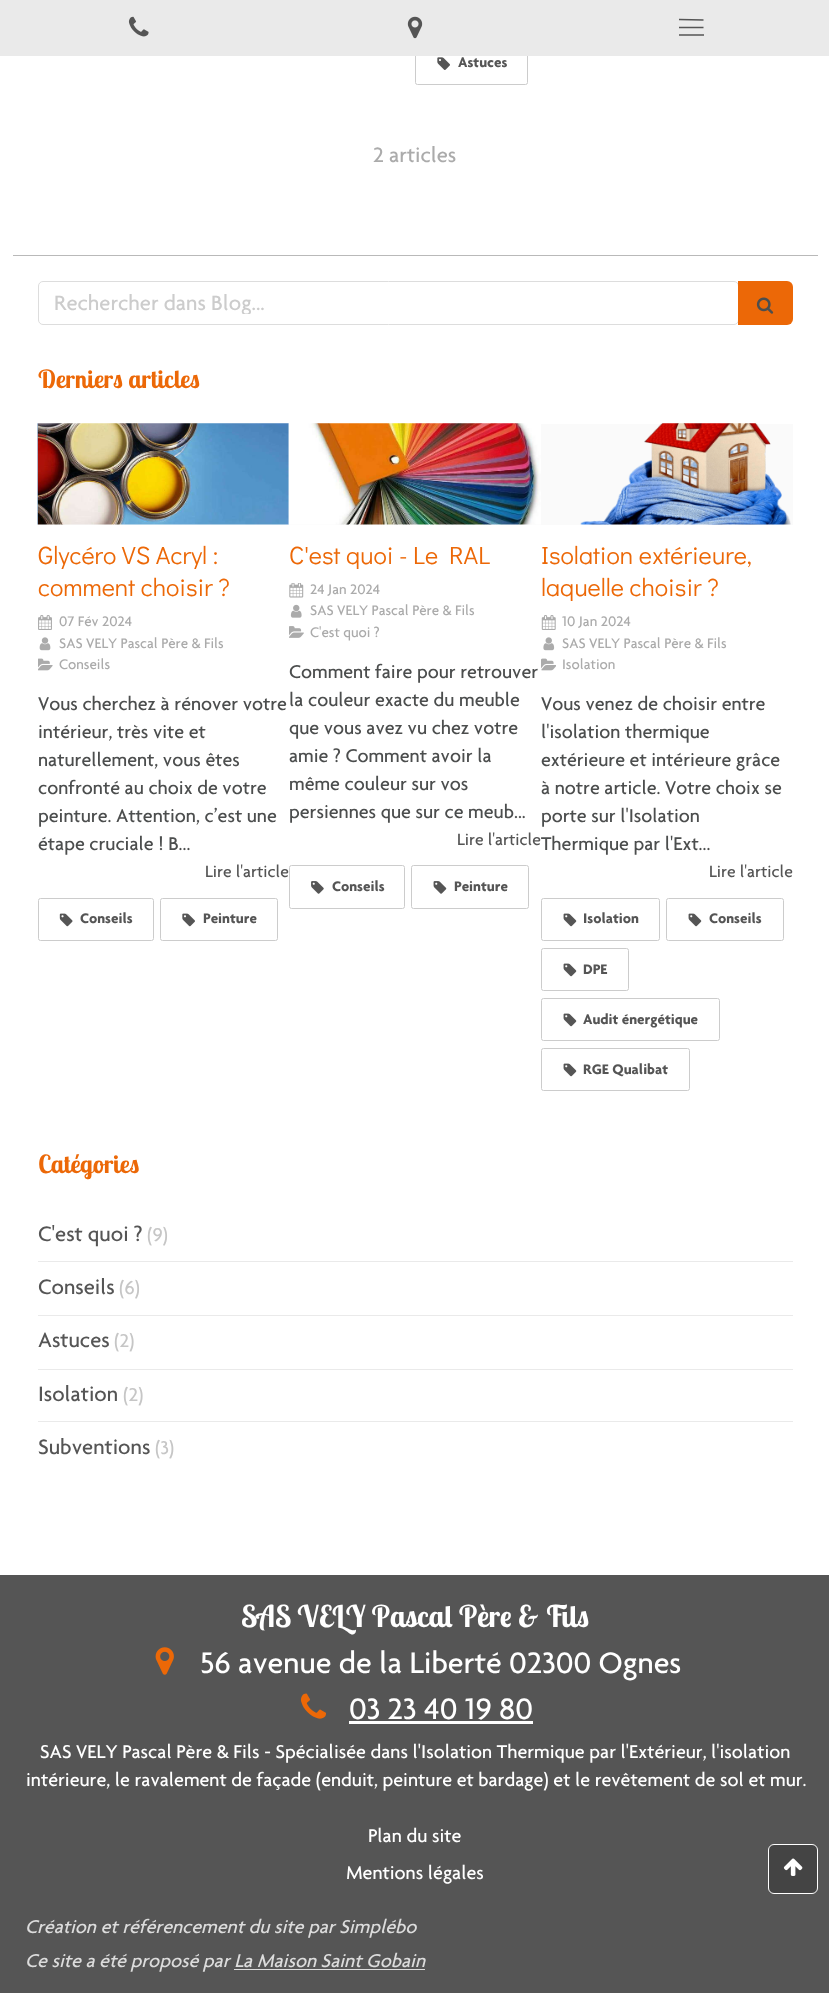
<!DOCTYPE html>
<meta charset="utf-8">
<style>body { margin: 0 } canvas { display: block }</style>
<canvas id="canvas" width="829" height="1993"></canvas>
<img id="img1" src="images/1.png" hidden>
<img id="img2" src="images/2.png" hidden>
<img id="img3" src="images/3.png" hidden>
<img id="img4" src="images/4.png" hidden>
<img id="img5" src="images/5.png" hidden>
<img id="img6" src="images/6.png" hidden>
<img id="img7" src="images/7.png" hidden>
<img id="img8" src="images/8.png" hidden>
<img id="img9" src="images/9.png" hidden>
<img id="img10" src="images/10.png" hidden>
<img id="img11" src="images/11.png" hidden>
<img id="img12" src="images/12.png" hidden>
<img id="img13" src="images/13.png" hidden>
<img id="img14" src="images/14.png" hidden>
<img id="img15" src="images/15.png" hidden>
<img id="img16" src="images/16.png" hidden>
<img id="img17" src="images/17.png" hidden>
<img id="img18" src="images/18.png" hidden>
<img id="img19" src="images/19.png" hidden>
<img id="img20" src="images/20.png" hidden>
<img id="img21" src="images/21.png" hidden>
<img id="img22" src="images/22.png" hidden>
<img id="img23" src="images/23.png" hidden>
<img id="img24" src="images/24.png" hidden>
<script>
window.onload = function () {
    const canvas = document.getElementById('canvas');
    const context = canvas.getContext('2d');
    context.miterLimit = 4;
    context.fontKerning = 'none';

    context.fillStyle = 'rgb(255, 255, 255)';
    context.fillRect(0, 0, 829, 1993);
    context.beginPath();
    context.roundRect(415.5, 41.5, 112, 43, 2);
    context.strokeStyle = 'rgb(204, 204, 204)';
    context.stroke();
    context.fillStyle = 'rgb(234, 234, 234)';
    context.fillRect(0, 0, 829, 56);
    context.drawImage(document.getElementById('img1'), 128, 16, 21, 21);
    context.drawImage(document.getElementById('img2'), 407, 16, 16, 23);
    context.beginPath();
    context.moveTo(679, 27.5);
    context.lineTo(703.5, 27.5);
    context.moveTo(679, 19.5);
    context.lineTo(703.5, 20);
    context.strokeStyle = 'rgb(85, 85, 85)';
    context.lineWidth = 1.5;
    context.stroke();
    context.fillStyle = 'rgb(122, 122, 122)';
    context.fillRect(679, 34, 25, 2);
    context.fillStyle = 'rgb(185, 185, 185)';
    context.fillRect(13, 255, 805, 1);
    context.drawImage(document.getElementById('img3'), 437, 57, 13, 13);
    context.beginPath();
    context.roundRect(38.5, 281.5, 700, 43, 4.5);
    context.strokeStyle = 'rgb(221, 221, 221)';
    context.lineWidth = 1;
    context.stroke();
    context.fillStyle = 'rgb(236, 104, 7)';
    context.beginPath();
    context.roundRect(738, 281, 55, 44, [0, 6, 6, 0]);
    context.fill();
    context.drawImage(document.getElementById('img4'), 756, 297, 18, 17);
    context.fillStyle = 'rgb(250, 250, 250)';
    context.fillRect(38, 424, 251, 101);
    context.drawImage(document.getElementById('img5'), 37, 423, 252, 102);
    context.drawImage(document.getElementById('img6'), 38, 615, 14, 15);
    context.drawImage(document.getElementById('img7'), 39, 637, 12, 14);
    context.drawImage(document.getElementById('img8'), 38, 658, 15, 13);
    context.beginPath();
    context.roundRect(38.5, 898.5, 115, 42, 2);
    context.strokeStyle = 'rgb(204, 204, 204)';
    context.stroke();
    context.drawImage(document.getElementById('img9'), 59, 913, 14, 14);
    context.beginPath();
    context.roundRect(160.5, 898.5, 117, 42, 2);
    context.stroke();
    context.drawImage(document.getElementById('img10'), 182, 913, 13, 14);
    context.fillRect(289, 524, 252, 1);
    context.drawImage(document.getElementById('img11'), 288, 423, 253, 102);
    context.drawImage(document.getElementById('img12'), 289, 583, 15, 15);
    context.drawImage(document.getElementById('img13'), 290, 604, 12, 14);
    context.drawImage(document.getElementById('img14'), 289, 626, 15, 12);
    context.beginPath();
    context.roundRect(289.5, 865.5, 115, 43, 2);
    context.stroke();
    context.drawImage(document.getElementById('img15'), 311, 881, 13, 13);
    context.beginPath();
    context.roundRect(411.5, 865.5, 117, 43, 2);
    context.stroke();
    context.drawImage(document.getElementById('img16'), 433, 881, 14, 13);
    context.fillRect(541, 424, 252, 101);
    context.drawImage(document.getElementById('img17'), 580, 423, 211, 102);
    context.drawImage(document.getElementById('img18'), 541, 615, 15, 15);
    context.drawImage(document.getElementById('img19'), 543, 637, 12, 14);
    context.drawImage(document.getElementById('img20'), 541, 658, 15, 13);
    context.beginPath();
    context.roundRect(541.5, 898.5, 118, 42, 2);
    context.stroke();
    context.drawImage(document.getElementById('img21'), 563, 913, 14, 14);
    context.beginPath();
    context.roundRect(666.5, 898.5, 117, 42, 2);
    context.stroke();
    context.drawImage(document.getElementById('img21'), 688, 913, 14, 14);
    context.beginPath();
    context.roundRect(541.5, 948.5, 87, 42, 2);
    context.stroke();
    context.drawImage(document.getElementById('img21'), 563, 963, 14, 14);
    context.beginPath();
    context.roundRect(541.5, 998.5, 178, 42, 2);
    context.stroke();
    context.drawImage(document.getElementById('img21'), 563, 1013, 14, 14);
    context.beginPath();
    context.roundRect(541.5, 1048.5, 148, 42, 2);
    context.stroke();
    context.drawImage(document.getElementById('img21'), 563, 1063, 14, 14);
    context.fillStyle = 'rgb(234, 234, 234)';
    context.fillRect(38, 1261, 755, 1);
    context.fillRect(38, 1315, 755, 1);
    context.fillRect(38, 1369, 755, 1);
    context.fillRect(38, 1421, 755, 1);
    context.fillStyle = 'rgb(85, 85, 85)';
    context.fillRect(0, 1575, 829, 418);
    context.drawImage(document.getElementById('img22'), 155, 1647, 19, 28);
    context.drawImage(document.getElementById('img23'), 300, 1693, 27, 26);
    context.fillStyle = 'rgb(255, 255, 255)';
    context.fillRect(349, 1721, 184, 3);
    context.fillStyle = 'rgb(220, 220, 220)';
    context.fillRect(234, 1969, 191, 1);
    context.fillStyle = 'rgb(68, 68, 68)';
    context.beginPath();
    context.roundRect(768.5, 1844.5, 49, 49, 5.5);
    context.fill();
    context.strokeStyle = 'rgb(255, 255, 255)';
    context.stroke();
    context.drawImage(document.getElementById('img24'), 783, 1858, 20, 18);
    context.font = 'bold 15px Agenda';
    context.fillStyle = 'rgb(85, 85, 85)';
    context.fillText('Astuces', 458, 67);
    context.font = '500 22.5px Agenda';
    context.fillStyle = 'rgb(171, 171, 171)';
    context.fillText('2 articles', 373, 162);
    context.save();
    context.beginPath();
    context.rect(54, 294, 669, 20);
    context.clip();
    context.fillStyle = 'rgb(204, 204, 204)';
    context.fillText('Rechercher dans Blog...', 54, 310);
    context.restore();
    context.font = 'bold 25px Lobster Two';
    context.fillStyle = 'rgb(236, 104, 7)';
    context.fillText('Derniers articles', 38, 388);
    context.font = '25px Didact Gothic';
    context.fillText('Glycéro VS Acryl :', 38, 564);
    context.fillText('comment choisir ?', 38, 596);
    context.font = '500 15px Agenda';
    context.fillStyle = 'rgb(171, 171, 171)';
    context.fillText('07 Fév 2024', 59, 626);
    context.fillText('SAS VELY Pascal Père & Fils', 59, 648);
    context.fillText('Conseils', 59, 669);
    context.font = '500 20px Agenda';
    context.fillStyle = 'rgb(76, 78, 78)';
    context.fillText('Vous cherchez à rénover votre', 38, 710);
    context.fillText('intérieur, très vite et', 38, 738);
    context.fillText('naturellement, vous êtes', 38, 766);
    context.fillText('confronté au choix de votre', 38, 794);
    context.fillText('peinture. Attention, c’est une', 38, 822);
    context.fillText('étape cruciale ! B...', 38, 850);
    context.font = '500 17.5px Agenda';
    context.fillStyle = 'rgb(85, 85, 85)';
    context.fillText('Lire l\'article', 205, 877);
    context.font = 'bold 15px Agenda';
    context.fillText('Conseils', 80, 923);
    context.fillText('Peinture', 203, 923);
    context.font = '25px Didact Gothic';
    context.fillStyle = 'rgb(236, 104, 7)';
    context.fillText('C\'est quoi - Le', 289, 564);
    context.fillText('RAL', 449, 564);
    context.font = '500 15px Agenda';
    context.fillStyle = 'rgb(171, 171, 171)';
    context.fillText('24 Jan 2024', 310, 594);
    context.fillText('SAS VELY Pascal Père & Fils', 310, 615);
    context.fillText('C\'est quoi ?', 310, 637);
    context.font = '500 20px Agenda';
    context.fillStyle = 'rgb(76, 78, 78)';
    context.fillText('Comment faire pour retrouver', 289, 678);
    context.fillText('la couleur exacte du meuble', 289, 706);
    context.fillText('que vous avez vu chez votre', 289, 734);
    context.fillText('amie ? Comment avoir la', 289, 762);
    context.fillText('même couleur sur vos', 289, 790);
    context.fillText('persiennes que sur ce meub...', 289, 818);
    context.font = '500 17.5px Agenda';
    context.fillStyle = 'rgb(85, 85, 85)';
    context.fillText('Lire l\'article', 457, 845);
    context.font = 'bold 15px Agenda';
    context.fillText('Conseils', 332, 891);
    context.fillText('Peinture', 454, 891);
    context.font = '25px Didact Gothic';
    context.fillStyle = 'rgb(236, 104, 7)';
    context.fillText('Isolation extérieure,', 541, 564);
    context.fillText('laquelle choisir ?', 541, 596);
    context.font = '500 15px Agenda';
    context.fillStyle = 'rgb(171, 171, 171)';
    context.fillText('10 Jan 2024', 562, 626);
    context.fillText('SAS VELY Pascal Père & Fils', 562, 648);
    context.fillText('Isolation', 562, 669);
    context.font = '500 20px Agenda';
    context.fillStyle = 'rgb(76, 78, 78)';
    context.fillText('Vous venez de choisir entre', 541, 710);
    context.fillText('l\'isolation thermique', 541, 738);
    context.fillText('extérieure et intérieure grâce', 541, 766);
    context.fillText('à notre article. Votre choix se', 541, 794);
    context.fillText('porte sur l\'Isolation', 541, 822);
    context.fillText('Thermique par l\'Ext...', 541, 850);
    context.font = '500 17.5px Agenda';
    context.fillStyle = 'rgb(85, 85, 85)';
    context.fillText('Lire l\'article', 709, 877);
    context.font = 'bold 15px Agenda';
    context.fillText('Isolation', 583, 923);
    context.fillText('Conseils', 709, 923);
    context.fillText('DPE', 583, 974);
    context.fillText('Audit énergétique', 583, 1024);
    context.fillText('RGE Qualibat', 583, 1074);
    context.font = 'bold 25px Lobster Two';
    context.fillStyle = 'rgb(236, 104, 7)';
    context.fillText('Catégories', 38, 1173);
    context.font = '500 22.5px Agenda';
    context.fillStyle = 'rgb(85, 85, 85)';
    context.fillText('C\'est quoi ?', 38, 1241);
    context.font = '500 20px Agenda';
    context.fillStyle = 'rgb(198, 198, 198)';
    context.fillText('(9)', 147, 1241);
    context.font = '500 22.5px Agenda';
    context.fillStyle = 'rgb(85, 85, 85)';
    context.fillText('Conseils', 38, 1294);
    context.font = '500 20px Agenda';
    context.fillStyle = 'rgb(198, 198, 198)';
    context.fillText('(6)', 119, 1294);
    context.font = '500 22.5px Agenda';
    context.fillStyle = 'rgb(85, 85, 85)';
    context.fillText('Astuces', 38, 1347);
    context.font = '500 20px Agenda';
    context.fillStyle = 'rgb(198, 198, 198)';
    context.fillText('(2)', 114, 1347);
    context.font = '500 22.5px Agenda';
    context.fillStyle = 'rgb(85, 85, 85)';
    context.fillText('Isolation', 38, 1401);
    context.font = '500 20px Agenda';
    context.fillStyle = 'rgb(198, 198, 198)';
    context.fillText('(2)', 123, 1401);
    context.font = '500 22.5px Agenda';
    context.fillStyle = 'rgb(85, 85, 85)';
    context.fillText('Subventions', 38, 1454);
    context.font = '500 20px Agenda';
    context.fillStyle = 'rgb(198, 198, 198)';
    context.fillText('(3)', 155, 1454);
    context.font = 'bold 30px Lobster Two';
    context.fillStyle = 'rgb(255, 255, 255)';
    context.fillText('SAS VELY Pascal Père & Fils', 241, 1627);
    context.font = '500 32px Agenda';
    context.fillText('56 avenue de la Liberté 02300 Ognes', 200, 1673);
    context.fillText('03 23 40 19 80', 349, 1719);
    context.font = '500 20px Agenda';
    context.fillText('SAS VELY Pascal Père & Fils - Spécialisée dans l\'Isolation Thermique par l\'Extérieur,', 40, 1758);
    context.fillText('l\'isolation', 711, 1758);
    context.fillText('intérieure, le ravalement de façade (enduit, peinture et bardage) et le revêtement de sol et mur.', 26, 1786);
    context.fillText('Plan du site', 368, 1842);
    context.fillText('Mentions légales', 346, 1879);
    context.font = 'italic 500 20px Agenda';
    context.fillStyle = 'rgb(220, 220, 220)';
    context.fillText('Création et référencement du site par Simplébo', 25, 1933);
    context.fillText('Ce site a été proposé par La Maison Saint Gobain', 25, 1967);
};
</script>
